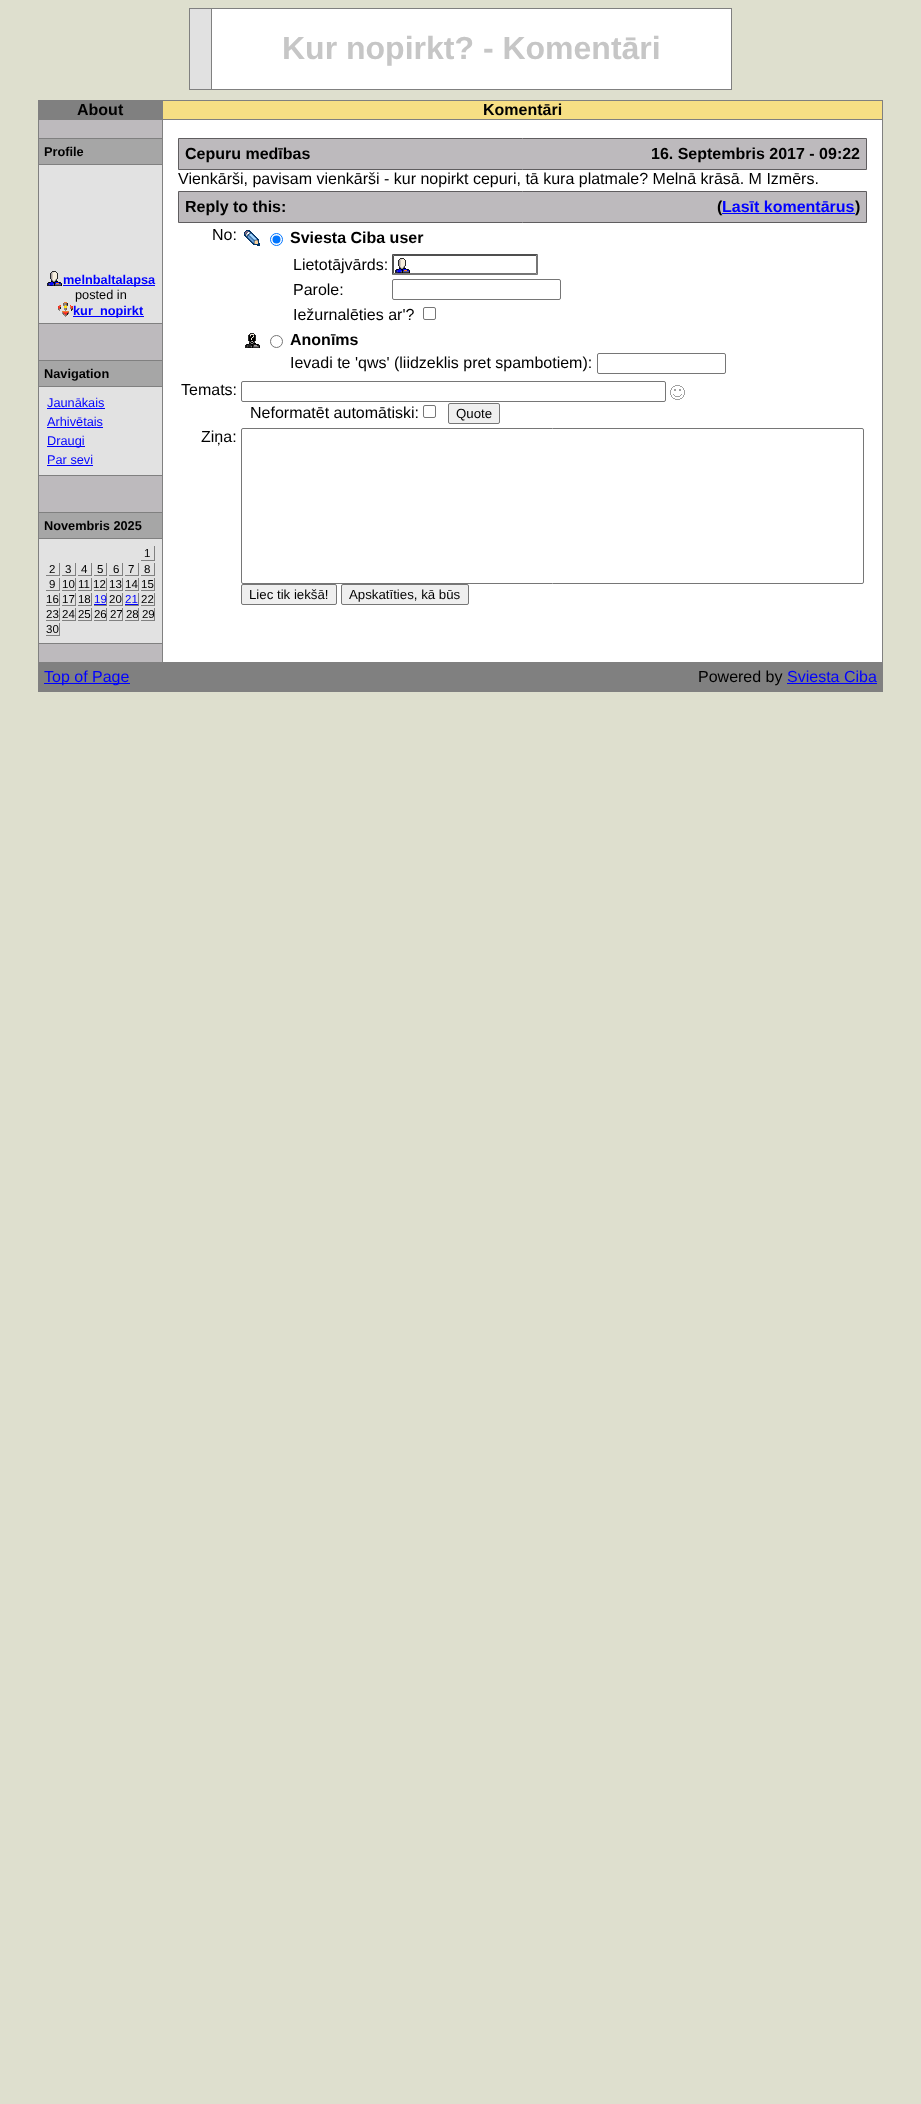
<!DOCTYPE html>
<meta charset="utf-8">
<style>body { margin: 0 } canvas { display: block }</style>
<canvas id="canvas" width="921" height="2104"></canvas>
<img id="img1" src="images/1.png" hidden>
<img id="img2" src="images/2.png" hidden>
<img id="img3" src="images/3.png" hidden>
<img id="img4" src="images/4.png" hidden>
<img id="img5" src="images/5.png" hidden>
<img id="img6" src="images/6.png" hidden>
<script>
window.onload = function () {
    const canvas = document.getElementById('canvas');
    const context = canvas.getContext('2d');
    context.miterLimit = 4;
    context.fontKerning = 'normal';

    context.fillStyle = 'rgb(222, 223, 206)';
    context.fillRect(0, 0, 921, 2104);
    context.strokeStyle = 'rgb(128, 128, 128)';
    context.strokeRect(189.5, 8.5, 542, 81);
    context.fillStyle = 'rgb(225, 225, 225)';
    context.fillRect(190, 9, 21, 80);
    context.fillStyle = 'rgb(128, 128, 128)';
    context.fillRect(211, 9, 1, 80);
    context.fillStyle = 'rgb(255, 255, 255)';
    context.fillRect(212, 9, 519, 80);
    context.strokeRect(38.5, 100.5, 844, 591);
    context.fillStyle = 'rgb(128, 128, 128)';
    context.fillRect(39, 101, 124, 18);
    context.fillStyle = 'rgb(247, 223, 132)';
    context.fillRect(163, 101, 719, 18);
    context.fillStyle = 'rgb(189, 186, 189)';
    context.fillRect(39, 120, 123, 542);
    context.fillStyle = 'rgb(128, 128, 128)';
    context.fillRect(39, 119, 843, 1);
    context.fillRect(162, 119, 1, 543);
    context.fillStyle = 'rgb(166, 166, 166)';
    context.fillRect(39, 139, 123, 25);
    context.fillStyle = 'rgb(128, 128, 128)';
    context.fillRect(39, 138, 123, 1);
    context.fillStyle = 'rgb(226, 226, 226)';
    context.fillRect(39, 165, 123, 158);
    context.fillStyle = 'rgb(128, 128, 128)';
    context.fillRect(39, 164, 123, 1);
    context.fillRect(39, 323, 123, 1);
    context.drawImage(document.getElementById('img1'), 47, 271, 15, 15);
    context.fillStyle = 'rgb(0, 0, 255)';
    context.fillRect(63, 285, 92, 1);
    context.drawImage(document.getElementById('img2'), 58, 302, 15, 15);
    context.fillRect(73, 316, 71, 1);
    context.fillStyle = 'rgb(166, 166, 166)';
    context.fillRect(39, 361, 123, 25);
    context.fillStyle = 'rgb(128, 128, 128)';
    context.fillRect(39, 360, 123, 1);
    context.fillStyle = 'rgb(226, 226, 226)';
    context.fillRect(39, 387, 123, 88);
    context.fillStyle = 'rgb(128, 128, 128)';
    context.fillRect(39, 386, 123, 1);
    context.fillRect(39, 475, 123, 1);
    context.fillStyle = 'rgb(0, 0, 255)';
    context.fillRect(47, 408, 58, 1);
    context.fillRect(47, 427, 56, 1);
    context.fillRect(47, 446, 38, 1);
    context.fillRect(47, 465, 46, 1);
    context.fillStyle = 'rgb(166, 166, 166)';
    context.fillRect(39, 513, 123, 25);
    context.fillStyle = 'rgb(128, 128, 128)';
    context.fillRect(39, 512, 123, 1);
    context.fillStyle = 'rgb(226, 226, 226)';
    context.fillRect(39, 539, 123, 104);
    context.fillStyle = 'rgb(128, 128, 128)';
    context.fillRect(39, 538, 123, 1);
    context.fillRect(39, 643, 123, 1);
    context.fillRect(154, 546, 1, 15);
    context.fillRect(141, 560, 14, 1);
    context.fillRect(59, 563, 1, 13);
    context.fillRect(46, 575, 14, 1);
    context.fillRect(75, 563, 1, 13);
    context.fillRect(62, 575, 14, 1);
    context.fillRect(91, 563, 1, 13);
    context.fillRect(78, 575, 14, 1);
    context.fillRect(106, 563, 1, 13);
    context.fillRect(94, 575, 13, 1);
    context.fillRect(122, 563, 1, 13);
    context.fillRect(109, 575, 14, 1);
    context.fillRect(138, 563, 1, 13);
    context.fillRect(125, 575, 14, 1);
    context.fillRect(154, 563, 1, 13);
    context.fillRect(141, 575, 14, 1);
    context.fillRect(59, 578, 1, 13);
    context.fillRect(46, 590, 14, 1);
    context.fillRect(91, 578, 1, 13);
    context.fillRect(78, 590, 14, 1);
    context.fillRect(106, 578, 1, 13);
    context.fillRect(94, 590, 13, 1);
    context.fillRect(122, 578, 1, 13);
    context.fillRect(109, 590, 14, 1);
    context.fillRect(138, 578, 1, 13);
    context.fillRect(125, 590, 14, 1);
    context.fillRect(154, 578, 1, 13);
    context.fillRect(141, 590, 14, 1);
    context.fillRect(75, 578, 1, 13);
    context.fillRect(62, 590, 14, 1);
    context.fillRect(75, 593, 1, 13);
    context.fillRect(62, 605, 14, 1);
    context.fillRect(91, 593, 1, 13);
    context.fillRect(78, 605, 14, 1);
    context.fillRect(59, 593, 1, 13);
    context.fillRect(46, 605, 14, 1);
    context.fillRect(106, 593, 1, 13);
    context.fillRect(94, 605, 13, 1);
    context.fillStyle = 'rgb(0, 0, 255)';
    context.fillRect(94, 604, 12, 1);
    context.fillStyle = 'rgb(128, 128, 128)';
    context.fillRect(122, 593, 1, 13);
    context.fillRect(109, 605, 14, 1);
    context.fillRect(138, 593, 1, 13);
    context.fillRect(125, 605, 14, 1);
    context.fillStyle = 'rgb(0, 0, 255)';
    context.fillRect(125, 604, 13, 1);
    context.fillStyle = 'rgb(128, 128, 128)';
    context.fillRect(154, 593, 1, 13);
    context.fillRect(141, 605, 14, 1);
    context.fillRect(75, 608, 1, 13);
    context.fillRect(62, 620, 14, 1);
    context.fillRect(91, 608, 1, 13);
    context.fillRect(78, 620, 14, 1);
    context.fillRect(106, 608, 1, 13);
    context.fillRect(94, 620, 13, 1);
    context.fillRect(122, 608, 1, 13);
    context.fillRect(109, 620, 14, 1);
    context.fillRect(138, 608, 1, 13);
    context.fillRect(125, 620, 14, 1);
    context.fillRect(154, 608, 1, 13);
    context.fillRect(141, 620, 14, 1);
    context.fillRect(59, 608, 1, 13);
    context.fillRect(46, 620, 14, 1);
    context.fillRect(59, 623, 1, 13);
    context.fillRect(46, 635, 14, 1);
    context.fillStyle = 'rgb(255, 255, 255)';
    context.fillRect(163, 120, 719, 542);
    context.fillStyle = 'rgb(189, 186, 189)';
    context.beginPath();
    context.rect(178.5, 138.5, 688, 31);
    context.fill();
    context.strokeStyle = 'rgb(95, 93, 95)';
    context.stroke();
    context.beginPath();
    context.rect(178.5, 191.5, 688, 31);
    context.fill();
    context.stroke();
    context.fillStyle = 'rgb(0, 0, 255)';
    context.fillRect(722, 213, 133, 1);
    context.drawImage(document.getElementById('img3'), 244, 230, 16, 16);
    context.beginPath();
    context.arc(276.5, 239.5, 6, 0, 2 * Math.PI);
    context.strokeStyle = 'rgb(0, 117, 255)';
    context.stroke();
    context.fillStyle = 'rgb(0, 117, 255)';
    context.beginPath();
    context.arc(276.5, 239.5, 4, 0, 2 * Math.PI);
    context.fill();
    context.drawImage(document.getElementById('img4'), 395, 258, 15, 15);
    context.fillStyle = 'rgb(79, 79, 79)';
    context.beginPath();
    context.moveTo(392, 254);
    context.lineTo(538, 254);
    context.lineTo(536, 256);
    context.lineTo(394, 256);
    context.closePath();
    context.fill();
    context.fillStyle = 'rgb(118, 118, 118)';
    context.beginPath();
    context.moveTo(538, 254);
    context.lineTo(538, 275);
    context.lineTo(536, 273);
    context.lineTo(536, 256);
    context.closePath();
    context.fill();
    context.beginPath();
    context.moveTo(538, 275);
    context.lineTo(392, 275);
    context.lineTo(394, 273);
    context.lineTo(536, 273);
    context.closePath();
    context.fill();
    context.fillStyle = 'rgb(79, 79, 79)';
    context.beginPath();
    context.moveTo(392, 275);
    context.lineTo(392, 254);
    context.lineTo(394, 256);
    context.lineTo(394, 273);
    context.closePath();
    context.fill();
    context.beginPath();
    context.roundRect(392.5, 279.5, 168, 20, 1.5);
    context.strokeStyle = 'rgb(118, 118, 118)';
    context.stroke();
    context.beginPath();
    context.roundRect(423.5, 307.5, 12, 12, 1.5);
    context.stroke();
    context.drawImage(document.getElementById('img5'), 245, 333, 15, 15);
    context.beginPath();
    context.arc(276.5, 341.5, 6, 0, 2 * Math.PI);
    context.stroke();
    context.beginPath();
    context.roundRect(597.5, 353.5, 128, 20, 1.5);
    context.stroke();
    context.beginPath();
    context.roundRect(241.5, 381.5, 424, 20, 1.5);
    context.stroke();
    context.drawImage(document.getElementById('img6'), 670, 385, 15, 15);
    context.beginPath();
    context.roundRect(423.5, 405.5, 12, 12, 1.5);
    context.stroke();
    context.fillStyle = 'rgb(239, 239, 239)';
    context.beginPath();
    context.roundRect(448.5, 403.5, 51, 20, 1.5);
    context.fill();
    context.stroke();
    context.beginPath();
    context.roundRect(241.5, 428.5, 622, 155, 1.5);
    context.stroke();
    context.beginPath();
    context.roundRect(241.5, 584.5, 95, 20, 1.5);
    context.fill();
    context.stroke();
    context.beginPath();
    context.roundRect(341.5, 584.5, 127, 20, 1.5);
    context.fill();
    context.stroke();
    context.fillStyle = 'rgb(128, 128, 128)';
    context.fillRect(39, 662, 843, 29);
    context.fillStyle = 'rgb(0, 0, 255)';
    context.fillRect(44, 683, 86, 1);
    context.fillRect(787, 683, 90, 1);
    context.font = 'bold 32px Liberation Sans';
    context.fillStyle = 'rgb(198, 198, 198)';
    context.fillText('Kur nopirkt? - Komentāri', 282, 59);
    context.font = 'bold 16px Liberation Sans';
    context.fillStyle = 'rgb(0, 0, 0)';
    context.fillText('About', 77, 115);
    context.fillText('Komentāri', 483, 115);
    context.font = 'bold 12.75px Liberation Sans';
    context.fillText('Profile', 44, 156);
    context.fillStyle = 'rgb(0, 0, 255)';
    context.fillText('melnbaltalapsa', 63, 284);
    context.font = '12.75px Liberation Sans';
    context.fillStyle = 'rgb(0, 0, 0)';
    context.fillText('posted in', 75, 299);
    context.font = 'bold 12.75px Liberation Sans';
    context.fillStyle = 'rgb(0, 0, 255)';
    context.fillText('kur_nopirkt', 73, 315);
    context.fillStyle = 'rgb(0, 0, 0)';
    context.fillText('Navigation', 44, 378);
    context.font = '12.75px Liberation Sans';
    context.fillStyle = 'rgb(0, 0, 255)';
    context.fillText('Jaunākais', 47, 407);
    context.fillText('Arhivētais', 47, 426);
    context.fillText('Draugi', 47, 445);
    context.fillText('Par sevi', 47, 464);
    context.font = 'bold 12.75px Liberation Sans';
    context.fillStyle = 'rgb(0, 0, 0)';
    context.fillText('Novembris 2025', 44, 530);
    context.font = '11.5px Liberation Sans';
    context.fillText('1', 144, 557);
    context.fillText('2', 49, 573);
    context.fillText('3', 65, 573);
    context.fillText('4', 81, 573);
    context.fillText('5', 97, 573);
    context.fillText('6', 113, 573);
    context.fillText('7', 128, 573);
    context.fillText('8', 144, 573);
    context.fillText('9', 49, 588);
    context.fillText('10 11 12 13 14 15', 62, 588);
    context.fillText('16 17 18', 46, 603);
    context.fillStyle = 'rgb(0, 0, 255)';
    context.fillText('19', 94, 603);
    context.fillStyle = 'rgb(0, 0, 0)';
    context.fillText('20', 109, 603);
    context.fillStyle = 'rgb(0, 0, 255)';
    context.fillText('21', 125, 603);
    context.fillStyle = 'rgb(0, 0, 0)';
    context.fillText('22', 141, 603);
    context.fillText('23 24 25 26 27 28 29', 46, 618);
    context.fillText('30', 46, 633);
    context.font = 'bold 16px Liberation Sans';
    context.fillText('Cepuru medības', 185, 159);
    context.fillText('16. Septembris 2017 - 09:22', 651, 159);
    context.font = '16px Liberation Sans';
    context.fillText('Vienkārši, pavisam vienkārši - kur nopirkt cepuri, tā kura platmale? Melnā krāsā. M Izmērs.', 178, 184);
    context.font = 'bold 16px Liberation Sans';
    context.fillText('Reply to this:', 185, 212);
    context.fillText('(', 717, 212);
    context.fillStyle = 'rgb(0, 0, 255)';
    context.fillText('Lasīt komentārus', 722, 212);
    context.fillStyle = 'rgb(0, 0, 0)';
    context.fillText(')', 855, 212);
    context.font = '16px Liberation Sans';
    context.fillText('No:', 212, 240);
    context.font = 'bold 16px Liberation Sans';
    context.fillText('Sviesta Ciba user', 290, 243);
    context.font = '16px Liberation Sans';
    context.fillText('Lietotājvārds:', 293, 270);
    context.fillText('Parole:', 293, 295);
    context.fillText('Iežurnalēties ar\'?', 293, 320);
    context.font = 'bold 16px Liberation Sans';
    context.fillText('Anonīms', 290, 345);
    context.font = '16px Liberation Sans';
    context.fillText('Ievadi te \'qws\' (liidzeklis pret spambotiem):', 290, 368);
    context.fillText('Temats:', 181, 395);
    context.fillText('Neformatēt automātiski:', 250, 418);
    context.font = '13.25px Liberation Sans';
    context.fillText('Quote', 456, 418);
    context.font = '16px Liberation Sans';
    context.fillText('Ziņa:', 201, 442);
    context.font = '13.25px Liberation Sans';
    context.fillText('Liec tik iekšā!', 249, 599);
    context.fillText('Apskatīties, kā būs', 349, 599);
    context.font = '16px Liberation Sans';
    context.fillStyle = 'rgb(0, 0, 255)';
    context.fillText('Top of Page', 44, 682);
    context.fillStyle = 'rgb(0, 0, 0)';
    context.fillText('Powered by', 698, 682);
    context.fillStyle = 'rgb(0, 0, 255)';
    context.fillText('Sviesta Ciba', 787, 682);
};
</script>
